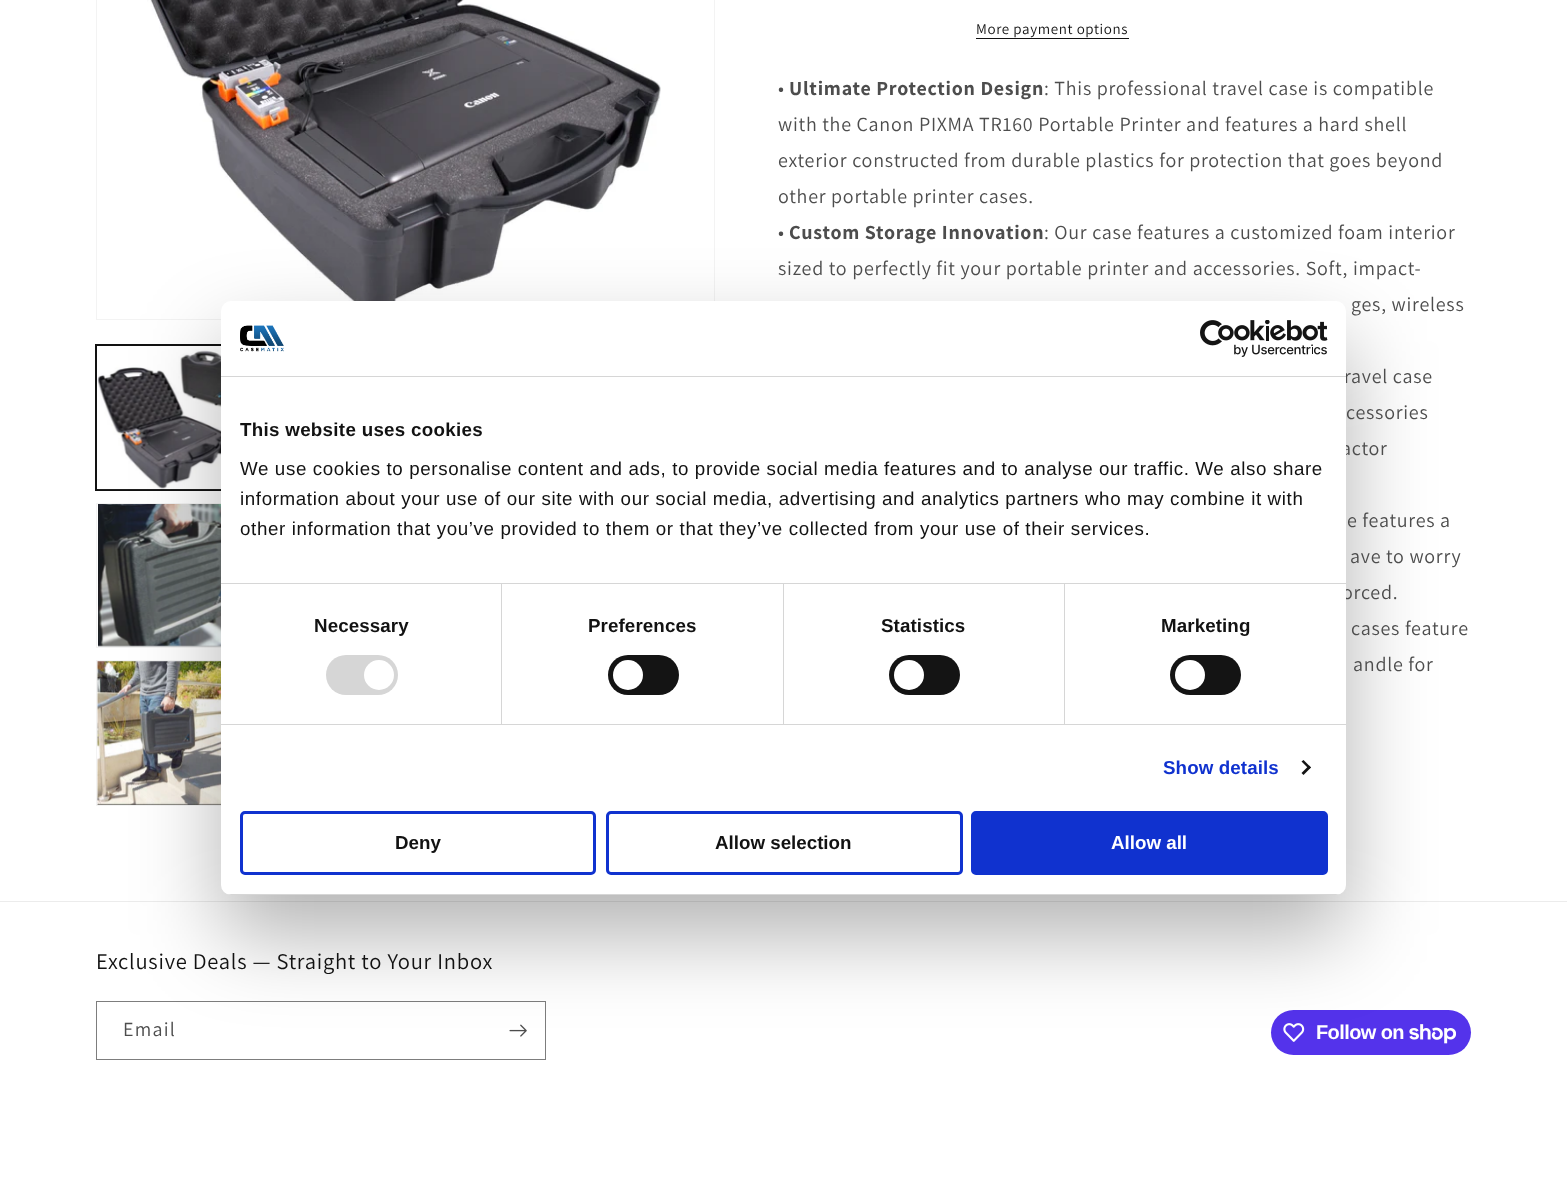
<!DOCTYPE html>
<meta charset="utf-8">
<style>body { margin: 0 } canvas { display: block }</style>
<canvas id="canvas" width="1567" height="1195"></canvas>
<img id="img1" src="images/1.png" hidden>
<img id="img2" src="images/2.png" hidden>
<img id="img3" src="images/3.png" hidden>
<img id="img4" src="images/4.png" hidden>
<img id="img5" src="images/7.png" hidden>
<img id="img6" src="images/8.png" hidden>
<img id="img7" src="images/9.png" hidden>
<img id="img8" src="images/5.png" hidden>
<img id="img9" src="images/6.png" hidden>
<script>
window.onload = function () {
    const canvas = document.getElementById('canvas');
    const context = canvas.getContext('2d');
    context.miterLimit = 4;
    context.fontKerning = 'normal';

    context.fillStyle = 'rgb(255, 255, 255)';
    context.fillRect(0, 0, 1567, 1195);
    context.strokeStyle = 'rgb(243, 243, 243)';
    context.strokeRect(96.5, -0.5, 618, 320);
    context.drawImage(document.getElementById('img1'), 147, 0, 514, 319);
    context.strokeStyle = 'rgb(18, 18, 18)';
    context.strokeRect(95.5, 344.5, 147, 146);
    context.strokeRect(96.5, 345.5, 144, 144);
    context.drawImage(document.getElementById('img2'), 97, 346, 124, 144);
    context.strokeStyle = 'rgb(243, 243, 243)';
    context.strokeRect(96.5, 503.5, 144, 144);
    context.drawImage(document.getElementById('img3'), 98, 504, 123, 143);
    context.strokeRect(96.5, 660.5, 144, 145);
    context.drawImage(document.getElementById('img4'), 97, 661, 124, 144);
    context.fillStyle = 'rgb(18, 18, 18)';
    context.fillRect(976, 38, 153, 1);
    context.fillStyle = 'rgb(236, 236, 236)';
    context.fillRect(0, 901, 1567, 1);
    context.strokeStyle = 'rgb(125, 125, 125)';
    context.strokeRect(96.5, 1001.5, 449, 58);
    context.drawImage(document.getElementById('img5'), 509, 1024, 18, 13);
    context.fillStyle = 'rgb(84, 51, 235)';
    context.beginPath();
    context.roundRect(1271, 1010, 200, 45, 22.5);
    context.fill();
    context.drawImage(document.getElementById('img6'), 1283, 1023, 22, 19);
    context.drawImage(document.getElementById('img7'), 1409, 1024, 47, 20);
    context.fillStyle = 'rgba(0, 0, 0, 0.3)';
    context.filter = 'blur(42.5px)';
    context.beginPath();
    context.roundRect(221, 341, 1125, 594, 10);
    context.fill();
    context.filter = 'none';
    context.letterSpacing = '0.62px';
    context.font = '15px Assistant';
    context.fillStyle = 'rgb(18, 18, 18)';
    context.fillText('More payment options', 976, 34);
    context.letterSpacing = '0.75px';
    context.font = '20px Assistant';
    context.fillStyle = 'rgb(77, 77, 77)';
    context.fillText('•', 778, 95);
    context.font = 'bold 20px Assistant';
    context.fillText('Ultimate Protection Design', 789, 95);
    context.font = '20px Assistant';
    context.fillText(': This professional travel case is compatible', 1044, 95);
    context.fillText('with the Canon PIXMA TR160 Portable Printer and features a hard shell', 778, 131);
    context.fillText('exterior constructed from durable plastics for protection that goes beyond', 778, 167);
    context.fillText('other portable printer cases.', 778, 203);
    context.fillText('•', 778, 239);
    context.font = 'bold 20px Assistant';
    context.fillText('Custom Storage Innovation', 789, 239);
    context.font = '20px Assistant';
    context.fillText(': Our case features a customized foam interior', 1044, 239);
    context.fillText('sized to perfectly fit your portable printer and accessories. Soft, impact-', 778, 275);
    context.fillText('ges, wireless', 1351, 311);
    context.fillText('ravel case', 1344, 383);
    context.fillText('cessories', 1346, 419);
    context.fillText('actor', 1341, 455);
    context.fillText('e features a', 1347, 527);
    context.fillText('ave to worry', 1350, 563);
    context.fillText('orced.', 1342, 599);
    context.fillText('cases feature', 1351, 635);
    context.fillText('andle for', 1353, 671);
    context.fillStyle = 'rgb(255, 255, 255)';
    context.beginPath();
    context.roundRect(221, 301, 1125, 594, 10);
    context.fill();
    context.fillStyle = 'rgb(214, 214, 214)';
    context.fillRect(221, 376, 1125, 1);
    context.drawImage(document.getElementById('img8'), 240, 325, 44, 27);
    context.drawImage(document.getElementById('img9'), 1200, 320, 128, 37);
    context.fillRect(221, 583, 1125, 1);
    context.letterSpacing = '0.3px';
    context.font = 'bold 18.75px Liberation Sans';
    context.fillStyle = 'rgb(18, 18, 18)';
    context.fillText('This website uses cookies', 240, 436);
    context.letterSpacing = '0.62px';
    context.font = '18.75px Liberation Sans';
    context.fillText('We use cookies to personalise content and ads, to provide social media features and to analyse our traffic. We also share', 240, 475);
    context.fillText('information about your use of our site with our social media, advertising and analytics partners who may combine it with', 240, 505);
    context.fillText('other information that you’ve provided to them or that they’ve collected from your use of their services.', 240, 535);
    context.fillStyle = 'rgb(214, 214, 214)';
    context.fillRect(221, 724, 1125, 1);
    context.fillRect(501, 584, 1, 140);
    context.letterSpacing = '0.1px';
    context.font = 'bold 18.75px Liberation Sans';
    context.fillStyle = 'rgb(18, 18, 18)';
    context.fillText('Necessary', 314, 632);
    context.fillStyle = 'rgb(214, 214, 214)';
    context.beginPath();
    context.roundRect(326, 655, 72, 40, 20);
    context.fill();
    context.fillStyle = 'rgb(255, 255, 255)';
    context.beginPath();
    context.arc(379, 675, 15, 0, 2 * Math.PI);
    context.fill();
    context.fillStyle = 'rgb(214, 214, 214)';
    context.fillRect(783, 584, 1, 140);
    context.fillStyle = 'rgb(18, 18, 18)';
    context.fillText('Preferences', 588, 632);
    context.fillStyle = 'rgb(20, 20, 20)';
    context.beginPath();
    context.roundRect(608, 655, 71, 40, 20);
    context.fill();
    context.fillStyle = 'rgb(255, 255, 255)';
    context.beginPath();
    context.arc(628, 675, 15, 0, 2 * Math.PI);
    context.fill();
    context.fillStyle = 'rgb(214, 214, 214)';
    context.fillRect(1064, 584, 1, 140);
    context.fillStyle = 'rgb(18, 18, 18)';
    context.fillText('Statistics', 881, 632);
    context.fillStyle = 'rgb(20, 20, 20)';
    context.beginPath();
    context.roundRect(889, 655, 71, 40, 20);
    context.fill();
    context.fillStyle = 'rgb(255, 255, 255)';
    context.beginPath();
    context.arc(909, 675, 15, 0, 2 * Math.PI);
    context.fill();
    context.fillStyle = 'rgb(18, 18, 18)';
    context.fillText('Marketing', 1161, 632);
    context.fillStyle = 'rgb(20, 20, 20)';
    context.beginPath();
    context.roundRect(1170, 655, 71, 40, 20);
    context.fill();
    context.fillStyle = 'rgb(255, 255, 255)';
    context.beginPath();
    context.arc(1190, 675, 15, 0, 2 * Math.PI);
    context.fill();
    context.fillStyle = 'rgb(16, 50, 207)';
    context.fillText('Show details', 1163, 774);
    context.fillStyle = 'rgb(20, 20, 20)';
    context.beginPath();
    context.moveTo(1303.5, 760);
    context.lineTo(1311, 767.5);
    context.lineTo(1309, 769);
    context.lineTo(1301.5, 761.5);
    context.closePath();
    context.fill();
    context.beginPath();
    context.moveTo(1309, 765.5);
    context.lineTo(1311, 767.5);
    context.lineTo(1303.5, 775);
    context.lineTo(1301.5, 773);
    context.closePath();
    context.fill();
    context.save();
    context.beginPath();
    context.roundRect(221, 301, 1125, 594, 10);
    context.clip();
    context.fillStyle = 'rgb(214, 214, 214)';
    context.fillRect(221, 894, 1125, 1);
    context.restore();
    context.beginPath();
    context.roundRect(241.5, 812.5, 353, 61, 3.5);
    context.strokeStyle = 'rgb(16, 50, 207)';
    context.lineWidth = 3;
    context.stroke();
    context.letterSpacing = '0px';
    context.fillStyle = 'rgb(18, 18, 18)';
    context.fillText('Deny', 395, 849);
    context.beginPath();
    context.roundRect(607.5, 812.5, 354, 61, 3.5);
    context.stroke();
    context.fillText('Allow selection', 715, 849);
    context.fillStyle = 'rgb(16, 50, 207)';
    context.beginPath();
    context.roundRect(972.5, 812.5, 354, 61, 3.5);
    context.fill();
    context.stroke();
    context.fillStyle = 'rgb(255, 255, 255)';
    context.fillText('Allow all', 1111, 849);
    context.letterSpacing = '0.75px';
    context.font = '22.5px Assistant';
    context.fillStyle = 'rgb(18, 18, 18)';
    context.fillText('Exclusive Deals — Straight to Your Inbox', 96, 969);
    context.letterSpacing = '1.25px';
    context.font = '20px Assistant';
    context.fillStyle = 'rgb(77, 77, 77)';
    context.fillText('Email', 123, 1036);
    context.letterSpacing = '-0.6px';
    context.font = 'bold 20px Liberation Sans';
    context.fillStyle = 'rgb(255, 255, 255)';
    context.fillText('Follow on', 1316, 1039);
};
</script>
